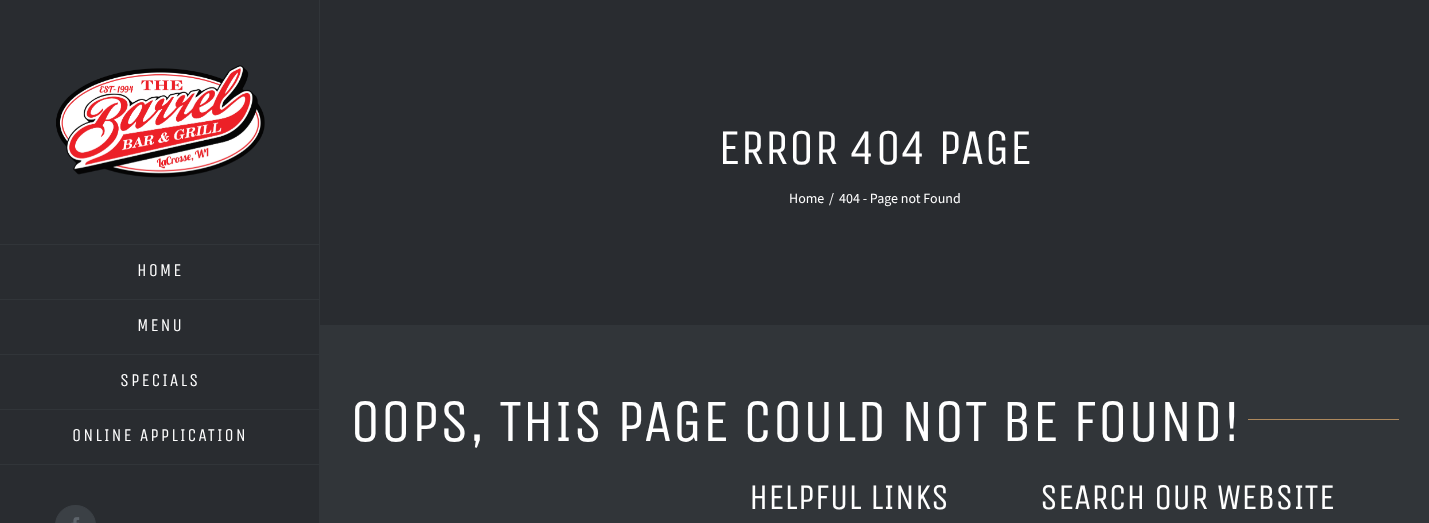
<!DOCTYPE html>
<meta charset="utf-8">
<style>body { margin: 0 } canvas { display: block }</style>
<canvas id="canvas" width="1429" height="523"></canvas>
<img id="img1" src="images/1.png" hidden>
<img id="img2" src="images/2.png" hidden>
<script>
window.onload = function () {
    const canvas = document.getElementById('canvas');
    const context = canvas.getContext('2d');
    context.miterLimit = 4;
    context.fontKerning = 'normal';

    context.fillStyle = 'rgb(49, 53, 57)';
    context.fillRect(0, 0, 1429, 523);
    context.fillStyle = 'rgb(41, 44, 48)';
    context.fillRect(320, 0, 1109, 325);
    context.fillRect(0, 0, 319, 523);
    context.drawImage(document.getElementById('img1'), 56, 65, 209, 113);
    context.fillStyle = 'rgb(49, 53, 57)';
    context.fillRect(0, 244, 320, 1);
    context.fillRect(0, 299, 320, 1);
    context.fillRect(0, 354, 320, 1);
    context.fillRect(0, 409, 320, 1);
    context.fillRect(0, 464, 320, 1);
    context.fillStyle = 'rgb(59, 64, 69)';
    context.beginPath();
    context.roundRect(55.5, 505.5, 40, 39, 20);
    context.fill();
    context.strokeStyle = 'rgb(59, 64, 69)';
    context.stroke();
    context.drawImage(document.getElementById('img2'), 71, 517, 9, 6);
    context.fillStyle = 'rgb(174, 137, 93)';
    context.fillRect(1248, 419, 151, 1);
    context.font = '50px Unica One';
    context.fillStyle = 'rgb(255, 255, 255)';
    context.fillText('ERROR 404 PAGE', 718, 164);
    context.font = '14px Source Sans Pro';
    context.fillText('Home', 789, 203);
    context.fillText('/', 829, 203);
    context.fillText('404 - Page not Found', 839, 203);
    context.letterSpacing = '2px';
    context.font = '18px Unica One';
    context.fillText('HOME', 137, 276);
    context.fillText('MENU', 137, 331);
    context.fillText('SPECIALS', 120, 386);
    context.fillText('ONLINE APPLICATION', 72, 441);
    context.letterSpacing = '0px';
    context.font = '60px Unica One';
    context.fillText('OOPS, THIS PAGE COULD NOT BE FOUND!', 350, 441);
    context.font = '36px Unica One';
    context.fillText('HELPFUL LINKS', 749, 509);
    context.fillText('SEARCH OUR WEBSITE', 1040, 509);
};
</script>
